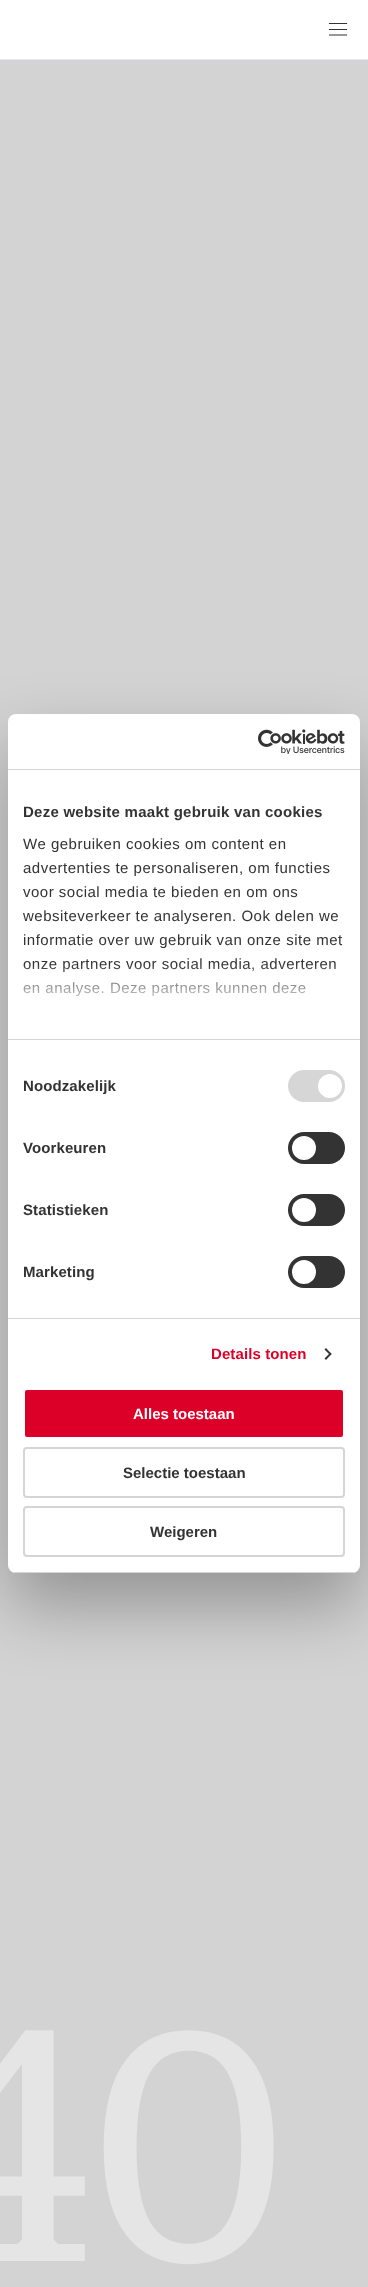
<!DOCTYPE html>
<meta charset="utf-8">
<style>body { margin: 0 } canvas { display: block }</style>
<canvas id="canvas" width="368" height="2287"></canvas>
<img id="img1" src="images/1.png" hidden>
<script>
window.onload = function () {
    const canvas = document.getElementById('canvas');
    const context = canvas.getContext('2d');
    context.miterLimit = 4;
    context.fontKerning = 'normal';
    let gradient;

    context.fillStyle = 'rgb(255, 255, 255)';
    context.fillRect(0, 0, 368, 2287);
    context.fillStyle = 'rgb(231, 233, 238)';
    context.fillRect(0, 59, 368, 1);
    context.save();
    context.beginPath();
    context.rect(328, 23, 20, 13);
    context.clip();
    context.beginPath();
    context.moveTo(329.5, 29.5);
    context.lineTo(346.5, 29.5);
    context.moveTo(329.5, 23.5);
    context.lineTo(346.5, 23.5);
    context.moveTo(329.5, 35);
    context.lineTo(346.5, 35);
    context.strokeStyle = 'rgb(51, 51, 51)';
    context.lineWidth = 1.1;
    context.lineCap = 'square';
    context.lineJoin = 'round';
    context.stroke();
    context.restore();
    context.fillStyle = 'rgb(211, 211, 211)';
    context.fillRect(0, 60, 368, 2227);
    context.fillStyle = 'rgba(0, 0, 0, 0.3)';
    context.filter = 'blur(34px)';
    context.beginPath();
    context.roundRect(8, 746, 352, 859, 8);
    context.fill();
    context.filter = 'none';
    context.fillStyle = 'rgb(255, 255, 255)';
    context.beginPath();
    context.roundRect(8, 714, 352, 859, 8);
    context.fill();
    context.fillStyle = 'rgb(214, 214, 214)';
    context.fillRect(8, 769, 352, 1);
    context.drawImage(document.getElementById('img1'), 258, 729, 87, 25);
    context.fillRect(8, 1039, 352, 1);
    context.fillRect(8, 1318, 352, 1);
    context.beginPath();
    context.roundRect(288, 1070, 57, 32, 16);
    context.fill();
    context.fillStyle = 'rgb(255, 255, 255)';
    context.beginPath();
    context.arc(330, 1086, 12, 0, 2 * Math.PI);
    context.fill();
    context.fillStyle = 'rgb(51, 51, 51)';
    context.beginPath();
    context.roundRect(288, 1132, 57, 32, 16);
    context.fill();
    context.fillStyle = 'rgb(255, 255, 255)';
    context.beginPath();
    context.arc(304, 1148, 12, 0, 2 * Math.PI);
    context.fill();
    context.fillStyle = 'rgb(51, 51, 51)';
    context.beginPath();
    context.roundRect(288, 1194, 57, 32, 16);
    context.fill();
    context.fillStyle = 'rgb(255, 255, 255)';
    context.beginPath();
    context.arc(304, 1210, 12, 0, 2 * Math.PI);
    context.fill();
    context.fillStyle = 'rgb(51, 51, 51)';
    context.beginPath();
    context.roundRect(288, 1256, 57, 32, 16);
    context.fill();
    context.fillStyle = 'rgb(255, 255, 255)';
    context.beginPath();
    context.arc(304, 1272, 12, 0, 2 * Math.PI);
    context.fill();
    context.fillStyle = 'rgb(51, 51, 51)';
    context.beginPath();
    context.moveTo(326, 1348);
    context.lineTo(331.5, 1354);
    context.lineTo(330.5, 1355.5);
    context.lineTo(324.5, 1349.5);
    context.closePath();
    context.fill();
    context.beginPath();
    context.moveTo(330.5, 1352.5);
    context.lineTo(331.5, 1354);
    context.lineTo(326, 1360);
    context.lineTo(324.5, 1358.5);
    context.closePath();
    context.fill();
    context.save();
    context.beginPath();
    context.roundRect(8, 714, 352, 859, 8);
    context.clip();
    context.fillStyle = 'rgb(214, 214, 214)';
    context.fillRect(8, 1572, 352, 1);
    context.restore();
    context.fillStyle = 'rgb(220, 0, 40)';
    context.beginPath();
    context.roundRect(24, 1389, 320, 49, 3);
    context.fill();
    context.strokeStyle = 'rgb(255, 255, 255)';
    context.lineWidth = 2;
    context.stroke();
    context.beginPath();
    context.roundRect(24, 1448, 320, 49, 3);
    context.strokeStyle = 'rgb(213, 213, 213)';
    context.stroke();
    context.beginPath();
    context.roundRect(24, 1507, 320, 49, 3);
    context.stroke();
    context.letterSpacing = '0.25px';
    context.font = 'bold 15px Liberation Sans';
    context.fillStyle = 'rgb(51, 51, 51)';
    context.fillText('Deze website maakt gebruik van cookies', 23, 817);
    context.letterSpacing = '0.5px';
    context.font = '15px Liberation Sans';
    context.fillText('We gebruiken cookies om content en', 23, 849);
    context.fillText('advertenties te personaliseren, om functies', 23, 873);
    context.fillText('voor social media te bieden en om ons', 23, 897);
    context.fillText('websiteverkeer te analyseren. Ook delen we', 23, 921);
    context.fillText('informatie over uw gebruik van onze site met', 23, 945);
    context.fillText('onze partners voor social media, adverteren', 23, 969);
    context.fillText('en analyse. Deze partners kunnen deze', 23, 993);
    gradient = context.createLinearGradient(178, 1039, 178, 964);
    gradient.addColorStop(0, 'rgb(255, 255, 255)');
    gradient.addColorStop(0.5, 'rgba(255, 255, 255, 0.8)');
    gradient.addColorStop(1, 'rgba(255, 255, 255, 0)');
    context.fillStyle = gradient;
    context.fillRect(23, 965, 313, 32);
    context.letterSpacing = '0.1px';
    context.font = 'bold 15px Liberation Sans';
    context.fillStyle = 'rgb(51, 51, 51)';
    context.fillText('Noodzakelijk', 23, 1091);
    context.fillText('Voorkeuren', 23, 1153);
    context.fillText('Statistieken', 23, 1215);
    context.fillText('Marketing', 23, 1277);
    context.fillStyle = 'rgb(220, 0, 40)';
    context.fillText('Details tonen', 211, 1359);
    context.letterSpacing = '0px';
    context.fillStyle = 'rgb(255, 255, 255)';
    context.fillText('Alles toestaan', 133, 1419);
    context.fillStyle = 'rgb(51, 51, 51)';
    context.fillText('Selectie toestaan', 123, 1478);
    context.fillText('Weigeren', 150, 1537);
    context.letterSpacing = '-11px';
    context.font = '325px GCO';
    context.fillStyle = 'rgb(229, 229, 229)';
    context.fillText('40', -93, 2261);
};
</script>
